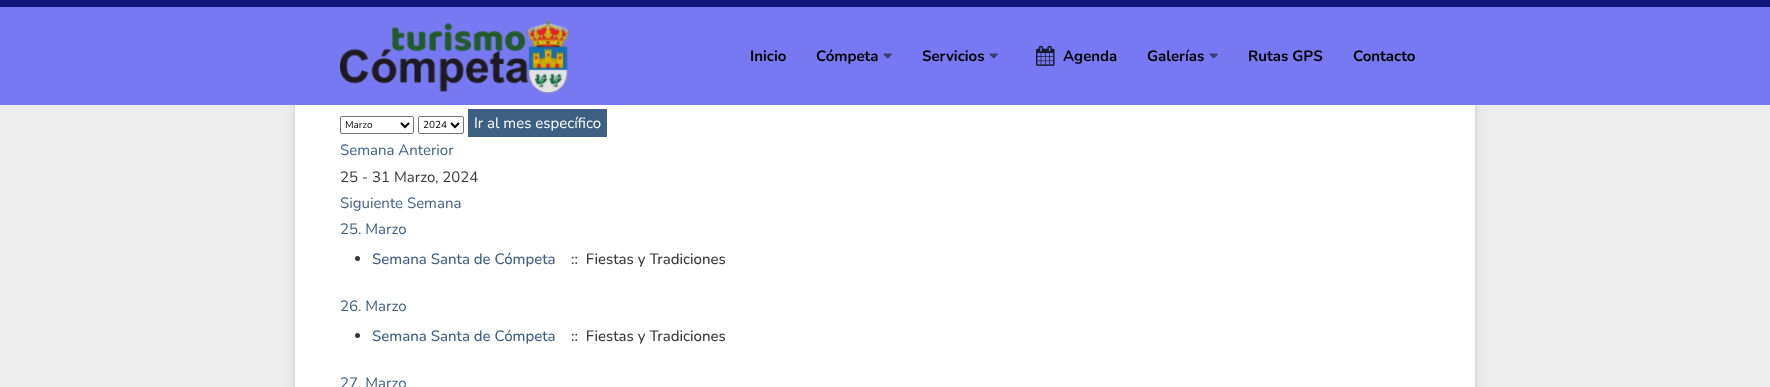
<!DOCTYPE html>
<meta charset="utf-8">
<style>body { margin: 0 } canvas { display: block }</style>
<canvas id="canvas" width="1770" height="387"></canvas>
<img id="img1" src="images/1.png" hidden>
<img id="img2" src="images/2.png" hidden>
<img id="img3" src="images/3.png" hidden>
<script>
window.onload = function () {
    const canvas = document.getElementById('canvas');
    const context = canvas.getContext('2d');
    context.miterLimit = 4;
    context.fontKerning = 'normal';

    context.fillStyle = 'rgb(237, 237, 237)';
    context.fillRect(0, 0, 1770, 387);
    context.fillStyle = 'rgba(52, 58, 67, 0.08)';
    context.filter = 'blur(7.5px)';
    context.beginPath();
    context.rect(295, -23, 1180, 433);
    context.fill();
    context.filter = 'none';
    context.filter = 'blur(2.5px)';
    context.beginPath();
    context.rect(295, -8, 1180, 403);
    context.fill();
    context.filter = 'none';
    context.fillStyle = 'rgba(52, 58, 67, 0.1)';
    context.filter = 'blur(1px)';
    context.beginPath();
    context.rect(295, -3, 1180, 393);
    context.fill();
    context.filter = 'none';
    context.fillStyle = 'rgb(255, 255, 255)';
    context.fillRect(295, 105, 1180, 282);
    context.fillStyle = 'rgba(255, 255, 255, 0.2)';
    context.fillRect(0, 105, 1770, 1);
    context.fillStyle = 'rgb(15, 22, 122)';
    context.fillRect(0, 0, 1770, 7);
    context.fillStyle = 'rgb(119, 121, 242)';
    context.fillRect(0, 7, 1770, 98);
    context.drawImage(document.getElementById('img1'), 340, 19, 229, 74);
    context.drawImage(document.getElementById('img2'), 883, 53, 9, 6);
    context.drawImage(document.getElementById('img2'), 989, 53, 9, 6);
    context.drawImage(document.getElementById('img3'), 1036, 45, 19, 21);
    context.drawImage(document.getElementById('img2'), 1209, 53, 9, 6);
    context.beginPath();
    context.roundRect(340.5, 116.5, 73, 17, 1.5);
    context.strokeStyle = 'rgb(118, 118, 118)';
    context.stroke();
    context.beginPath();
    context.moveTo(401, 123);
    context.lineTo(405, 127);
    context.lineTo(409, 123);
    context.strokeStyle = 'rgb(0, 0, 0)';
    context.lineWidth = 2;
    context.stroke();
    context.beginPath();
    context.roundRect(418.5, 116.5, 45, 17, 1.5);
    context.strokeStyle = 'rgb(118, 118, 118)';
    context.lineWidth = 1;
    context.stroke();
    context.beginPath();
    context.moveTo(451, 123);
    context.lineTo(455, 127);
    context.lineTo(459, 123);
    context.strokeStyle = 'rgb(0, 0, 0)';
    context.lineWidth = 2;
    context.stroke();
    context.fillStyle = 'rgb(61, 95, 130)';
    context.fillRect(468, 109, 139, 28);
    context.fillStyle = 'rgb(56, 56, 56)';
    context.beginPath();
    context.arc(357.5, 258.5, 2.5, 0, 2 * Math.PI);
    context.fill();
    context.beginPath();
    context.arc(357.5, 335.5, 2.5, 0, 2 * Math.PI);
    context.fill();
    context.font = 'bold 15px Nunito';
    context.fillStyle = 'rgb(0, 0, 0)';
    context.fillText('Inicio', 750, 61);
    context.fillText('Cómpeta', 816, 61);
    context.fillText('Servicios', 922, 61);
    context.fillText('Agenda', 1063, 61);
    context.fillText('Galerías', 1147, 61);
    context.fillText('Rutas GPS', 1248, 61);
    context.fillText('Contacto', 1353, 61);
    context.font = '10px Nunito';
    context.fillText('Marzo', 345, 128);
    context.fillText('2024', 423, 128);
    context.font = '15px Nunito';
    context.fillStyle = 'rgb(255, 255, 255)';
    context.fillText('Ir al mes específico', 474, 128);
    context.fillStyle = 'rgb(61, 95, 130)';
    context.fillText('Semana Anterior', 340, 155);
    context.fillStyle = 'rgb(56, 56, 56)';
    context.fillText('25 - 31 Marzo, 2024', 340, 182);
    context.fillStyle = 'rgb(61, 95, 130)';
    context.fillText('Siguiente Semana', 340, 208);
    context.fillText('25. Marzo', 340, 234);
    context.font = '500 15px Nunito';
    context.fillText('Semana Santa de Cómpeta', 372, 264);
    context.fillStyle = 'rgb(56, 56, 56)';
    context.fillText('::  Fiestas y Tradiciones', 571, 264);
    context.font = '15px Nunito';
    context.fillStyle = 'rgb(61, 95, 130)';
    context.fillText('26. Marzo', 340, 311);
    context.font = '500 15px Nunito';
    context.fillText('Semana Santa de Cómpeta', 372, 341);
    context.fillStyle = 'rgb(56, 56, 56)';
    context.fillText('::  Fiestas y Tradiciones', 571, 341);
    context.font = '15px Nunito';
    context.fillStyle = 'rgb(61, 95, 130)';
    context.fillText('27. Marzo', 340, 388);
};
</script>
